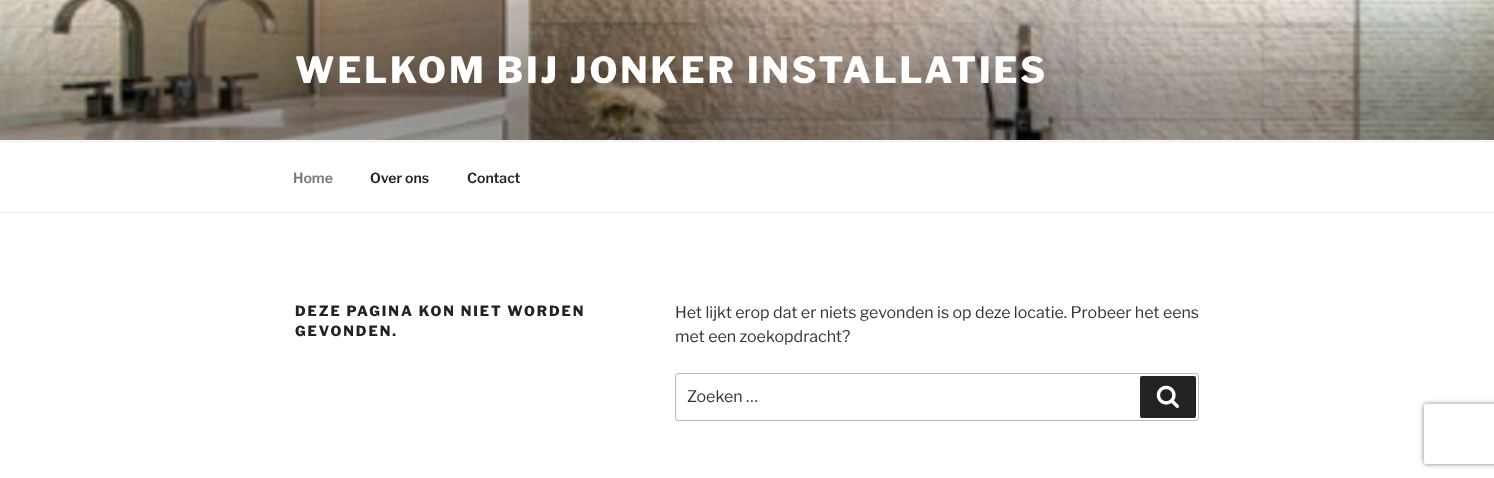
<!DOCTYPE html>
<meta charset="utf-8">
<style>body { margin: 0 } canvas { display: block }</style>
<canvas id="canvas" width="1494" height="478"></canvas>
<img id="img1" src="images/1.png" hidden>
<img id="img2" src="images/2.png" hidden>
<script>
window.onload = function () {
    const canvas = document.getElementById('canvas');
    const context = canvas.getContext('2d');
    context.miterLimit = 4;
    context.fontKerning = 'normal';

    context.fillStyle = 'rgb(255, 255, 255)';
    context.fillRect(0, 0, 1494, 478);
    context.fillStyle = 'rgb(250, 250, 250)';
    context.fillRect(0, 140, 1494, 1);
    context.drawImage(document.getElementById('img1'), 0, 0, 1494, 140);
    context.fillStyle = 'rgb(238, 238, 238)';
    context.fillRect(0, 141, 1494, 1);
    context.fillRect(0, 212, 1494, 1);
    context.beginPath();
    context.roundRect(675.5, 373.5, 523, 47, 2.5);
    context.strokeStyle = 'rgb(187, 187, 187)';
    context.stroke();
    context.fillStyle = 'rgb(34, 34, 34)';
    context.beginPath();
    context.roundRect(1140, 376, 56, 42, 2);
    context.fill();
    context.drawImage(document.getElementById('img2'), 1156, 385, 23, 23);
    context.save();
    context.beginPath();
    context.moveTo(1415, 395);
    context.lineTo(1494, 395);
    context.lineTo(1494, 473);
    context.lineTo(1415, 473);
    context.closePath();
    context.moveTo(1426, 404);
    context.lineTo(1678, 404);
    context.bezierCurveTo(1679, 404, 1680, 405, 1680, 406);
    context.lineTo(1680, 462);
    context.bezierCurveTo(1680, 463, 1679, 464, 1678, 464);
    context.lineTo(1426, 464);
    context.bezierCurveTo(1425, 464, 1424, 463, 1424, 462);
    context.lineTo(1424, 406);
    context.bezierCurveTo(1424, 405, 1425, 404, 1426, 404);
    context.closePath();
    context.clip('evenodd');
    context.fillStyle = 'rgb(128, 128, 128)';
    context.filter = 'blur(2.5px)';
    context.beginPath();
    context.roundRect(1424, 404, 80, 60, 2);
    context.fill();
    context.filter = 'none';
    context.restore();
    context.letterSpacing = '2.9px';
    context.font = '800 36px Libre Franklin';
    context.fillStyle = 'rgb(255, 255, 255)';
    context.fillText('WELKOM BIJ JONKER INSTALLATIES', 295, 83);
    context.letterSpacing = '0px';
    context.font = '600 14px Libre Franklin';
    context.fillStyle = 'rgb(118, 118, 118)';
    context.fillText('Home', 293, 183);
    context.fillStyle = 'rgb(34, 34, 34)';
    context.fillText('Over ons', 370, 183);
    context.fillText('Contact', 467, 183);
    context.letterSpacing = '1.95px';
    context.font = '800 14px Libre Franklin';
    context.fillText('DEZE PAGINA KON NIET WORDEN', 295, 316);
    context.fillText('GEVONDEN.', 295, 336);
    context.letterSpacing = '0px';
    context.font = '16px Libre Franklin';
    context.fillStyle = 'rgb(51, 51, 51)';
    context.fillText('Het lijkt erop dat er niets gevonden is op deze locatie. Probeer het eens', 675, 318);
    context.fillText('met een zoekopdracht?', 675, 342);
    context.fillText('Zoeken …', 687, 402);
};
</script>
